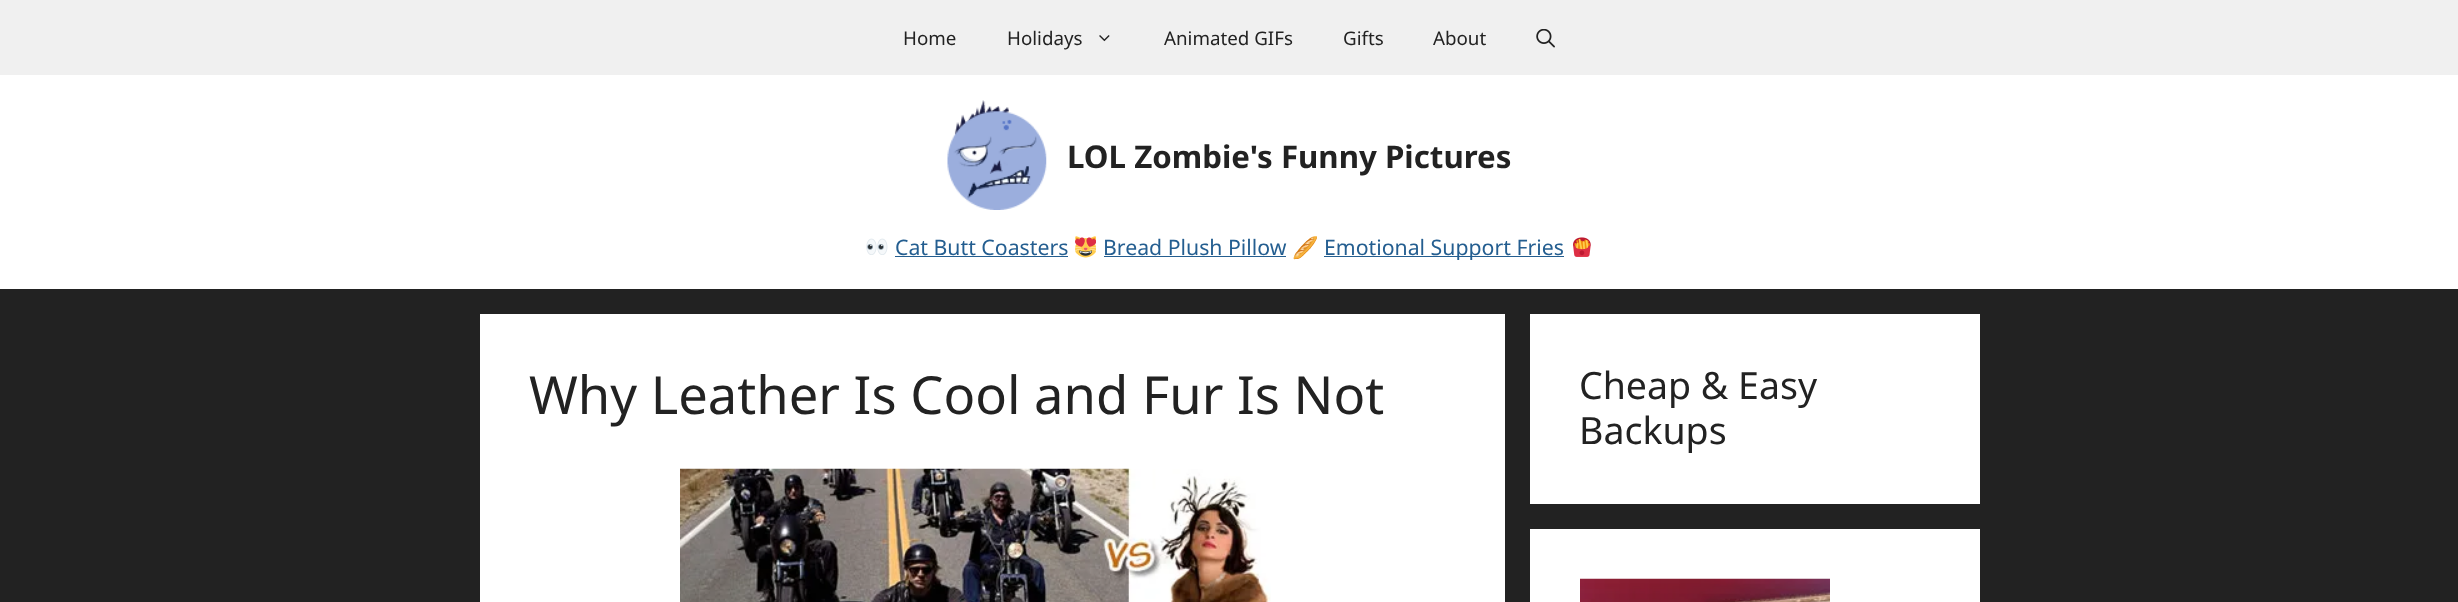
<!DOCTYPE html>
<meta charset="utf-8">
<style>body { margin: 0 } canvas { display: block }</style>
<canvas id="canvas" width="2458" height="602"></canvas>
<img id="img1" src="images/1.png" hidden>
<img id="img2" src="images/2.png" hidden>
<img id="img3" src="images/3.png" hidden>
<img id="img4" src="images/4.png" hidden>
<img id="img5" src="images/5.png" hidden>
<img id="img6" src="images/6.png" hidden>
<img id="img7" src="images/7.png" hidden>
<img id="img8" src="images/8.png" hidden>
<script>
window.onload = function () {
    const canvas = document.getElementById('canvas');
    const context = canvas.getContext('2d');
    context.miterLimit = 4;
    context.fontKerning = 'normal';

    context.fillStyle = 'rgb(34, 34, 34)';
    context.fillRect(0, 0, 2458, 602);
    context.fillStyle = 'rgb(240, 240, 240)';
    context.fillRect(0, 0, 2458, 75);
    context.drawImage(document.getElementById('img1'), 1099, 35, 11, 7);
    context.drawImage(document.getElementById('img2'), 1536, 29, 19, 19);
    context.fillStyle = 'rgb(255, 255, 255)';
    context.fillRect(0, 75, 2458, 214);
    context.drawImage(document.getElementById('img3'), 947, 100, 100, 110);
    context.drawImage(document.getElementById('img4'), 866, 238, 22, 17);
    context.fillStyle = 'rgb(36, 94, 144)';
    context.fillRect(895, 256, 173, 1);
    context.drawImage(document.getElementById('img5'), 1075, 236, 21, 22);
    context.fillRect(1104, 256, 182, 1);
    context.fillRect(1324, 256, 240, 1);
    context.drawImage(document.getElementById('img6'), 1573, 237, 18, 20);
    context.fillStyle = 'rgb(255, 255, 255)';
    context.fillRect(480, 314, 1025, 288);
    context.drawImage(document.getElementById('img7'), 680, 468, 591, 134);
    context.fillRect(1530, 314, 450, 190);
    context.fillRect(1530, 529, 450, 73);
    context.drawImage(document.getElementById('img8'), 1580, 578, 250, 24);
    context.font = '18.75px Noto Sans';
    context.fillStyle = 'rgb(34, 34, 34)';
    context.fillText('Home', 903, 45);
    context.fillText('Holidays', 1007, 45);
    context.fillText('Animated GIFs', 1164, 45);
    context.fillText('Gifts', 1343, 45);
    context.fillText('About', 1433, 45);
    context.font = 'bold 31.25px Noto Sans';
    context.fillText('LOL Zombie\'s Funny Pictures', 1067, 168);
    context.font = '21.25px Noto Sans';
    context.fillStyle = 'rgb(36, 94, 144)';
    context.fillText('Cat Butt Coasters', 895, 255);
    context.fillText('Bread Plush Pillow', 1103, 255);
    context.font = '21.25px Noto Color Emoji';
    context.fillStyle = 'rgb(34, 34, 34)';
    context.fillText('🥖', 1292, 255);
    context.font = '21.25px Noto Sans';
    context.fillStyle = 'rgb(36, 94, 144)';
    context.fillText('Emotional Support Fries', 1324, 255);
    context.font = '52.5px Noto Sans';
    context.fillStyle = 'rgb(34, 34, 34)';
    context.fillText('Why Leather Is Cool and Fur Is Not', 529, 414);
    context.font = '37.5px Noto Sans';
    context.fillText('Cheap & Easy', 1579, 399);
    context.fillText('Backups', 1579, 444);
};
</script>
